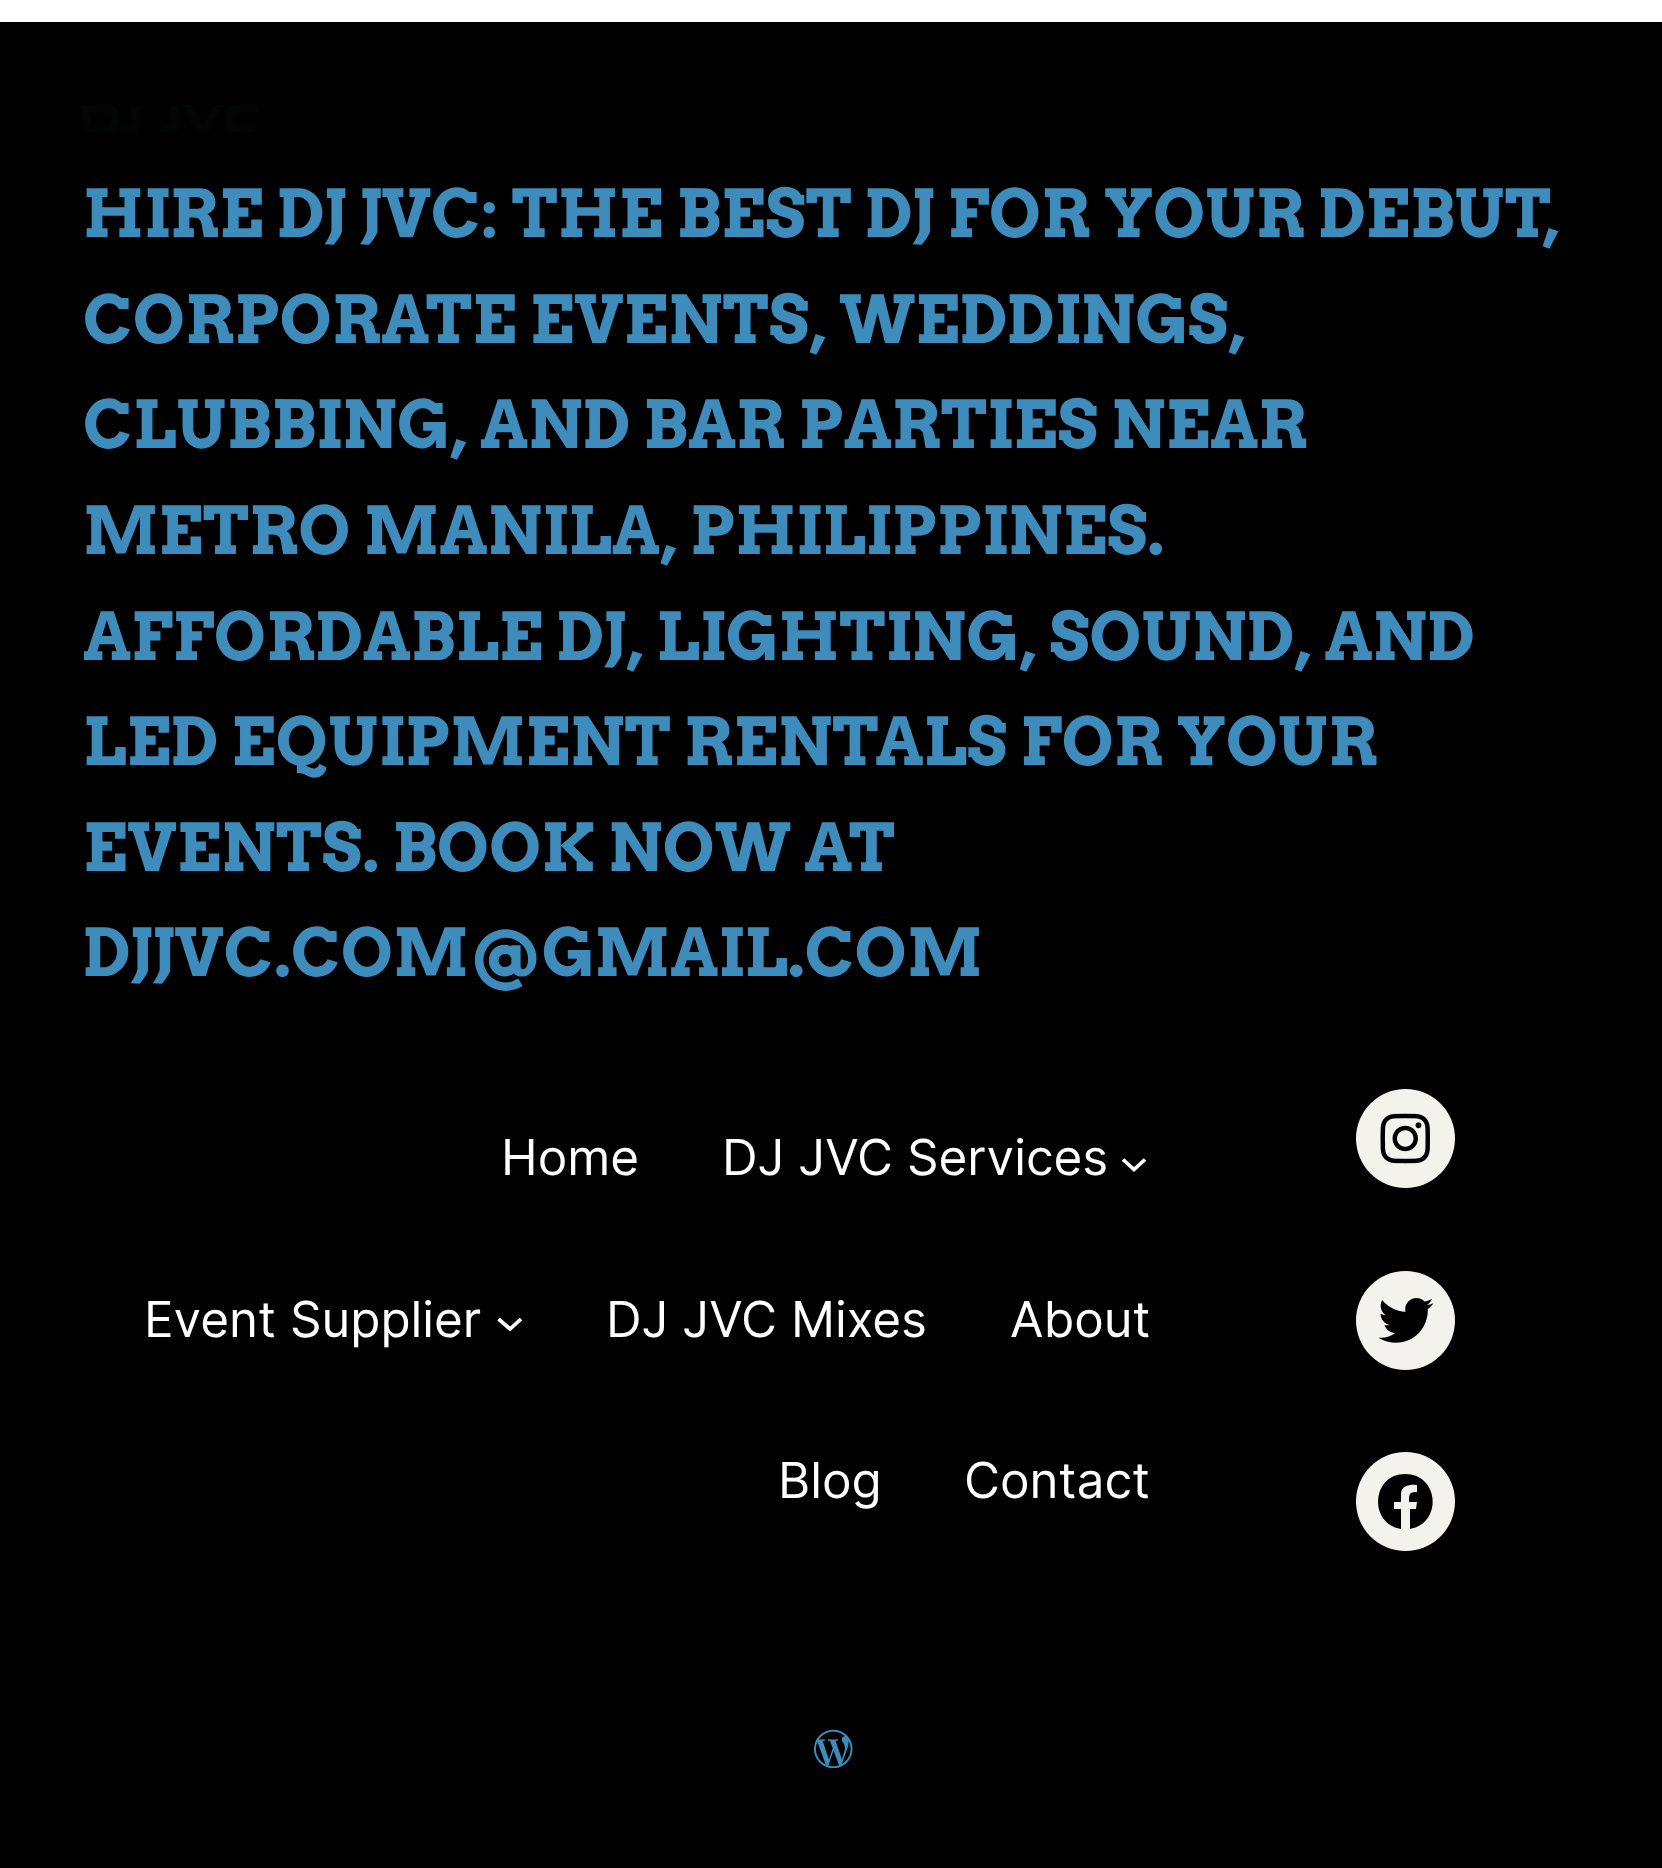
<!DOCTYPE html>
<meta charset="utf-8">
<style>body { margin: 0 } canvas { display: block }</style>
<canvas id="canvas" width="1662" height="1868"></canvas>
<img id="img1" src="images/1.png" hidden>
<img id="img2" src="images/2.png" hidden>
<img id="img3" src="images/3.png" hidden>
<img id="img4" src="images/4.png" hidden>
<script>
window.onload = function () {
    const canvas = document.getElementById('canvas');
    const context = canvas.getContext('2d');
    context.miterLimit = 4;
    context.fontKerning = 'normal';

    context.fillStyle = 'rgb(255, 255, 255)';
    context.fillRect(0, 0, 1662, 1868);
    context.fillStyle = 'rgb(1, 1, 1)';
    context.fillRect(0, 22, 1662, 1846);
    context.drawImage(document.getElementById('img1'), 83, 105, 175, 27);
    context.beginPath();
    context.moveTo(1123, 1159.5);
    context.lineTo(1134, 1169.5);
    context.lineTo(1145, 1159.5);
    context.strokeStyle = 'rgb(255, 255, 255)';
    context.lineWidth = 3.7;
    context.stroke();
    context.beginPath();
    context.moveTo(498.5, 1319);
    context.lineTo(510, 1329);
    context.lineTo(521, 1319);
    context.stroke();
    context.fillStyle = 'rgb(244, 242, 236)';
    context.beginPath();
    context.arc(1405.5, 1138.5, 49.5, 0, 2 * Math.PI);
    context.fill();
    context.drawImage(document.getElementById('img2'), 1380, 1113, 50, 51);
    context.beginPath();
    context.arc(1405.5, 1320.5, 49.5, 0, 2 * Math.PI);
    context.fill();
    context.drawImage(document.getElementById('img3'), 1378, 1298, 56, 45);
    context.beginPath();
    context.arc(1405.5, 1501.5, 49.5, 0, 2 * Math.PI);
    context.fill();
    context.fillStyle = 'rgb(0, 0, 0)';
    context.beginPath();
    context.moveTo(1405, 1474);
    context.bezierCurveTo(1372, 1474, 1368, 1523, 1401, 1529);
    context.lineTo(1401, 1509);
    context.lineTo(1394, 1509);
    context.lineTo(1394, 1502);
    context.lineTo(1401, 1502);
    context.lineTo(1401, 1493);
    context.bezierCurveTo(1402, 1485, 1411, 1484, 1417, 1485);
    context.lineTo(1417, 1492);
    context.bezierCurveTo(1409, 1492, 1409, 1494, 1409, 1502);
    context.lineTo(1417, 1502);
    context.lineTo(1416, 1509);
    context.lineTo(1410, 1509);
    context.lineTo(1410, 1529);
    context.bezierCurveTo(1443, 1523, 1439, 1474, 1405, 1474);
    context.closePath();
    context.fill();
    context.drawImage(document.getElementById('img4'), 814, 1729, 39, 39);
    context.font = 'bold 66px Arvo';
    context.fillStyle = 'rgb(62, 140, 187)';
    context.fillText('HIRE DJ JVC: THE BEST DJ FOR YOUR DEBUT,', 83, 237);
    context.fillText('CORPORATE EVENTS, WEDDINGS,', 83, 343);
    context.fillText('CLUBBING, AND BAR PARTIES NEAR', 83, 448);
    context.fillText('METRO MANILA, PHILIPPINES.', 83, 554);
    context.fillText('AFFORDABLE DJ, LIGHTING, SOUND, AND', 83, 660);
    context.fillText('LED EQUIPMENT RENTALS FOR YOUR', 83, 765);
    context.fillText('EVENTS. BOOK NOW AT', 83, 871);
    context.fillText('DJJVC.COM@GMAIL.COM', 83, 976);
    context.font = '49.5px Inter';
    context.fillStyle = 'rgb(255, 255, 255)';
    context.fillText('Home', 501, 1175);
    context.fillText('DJ JVC Services', 722, 1175);
    context.fillText('Event Supplier', 144, 1337);
    context.fillText('DJ JVC Mixes', 606, 1337);
    context.fillText('About', 1010, 1337);
    context.fillText('Blog', 778, 1498);
    context.fillText('Contact', 964, 1498);
};
</script>
